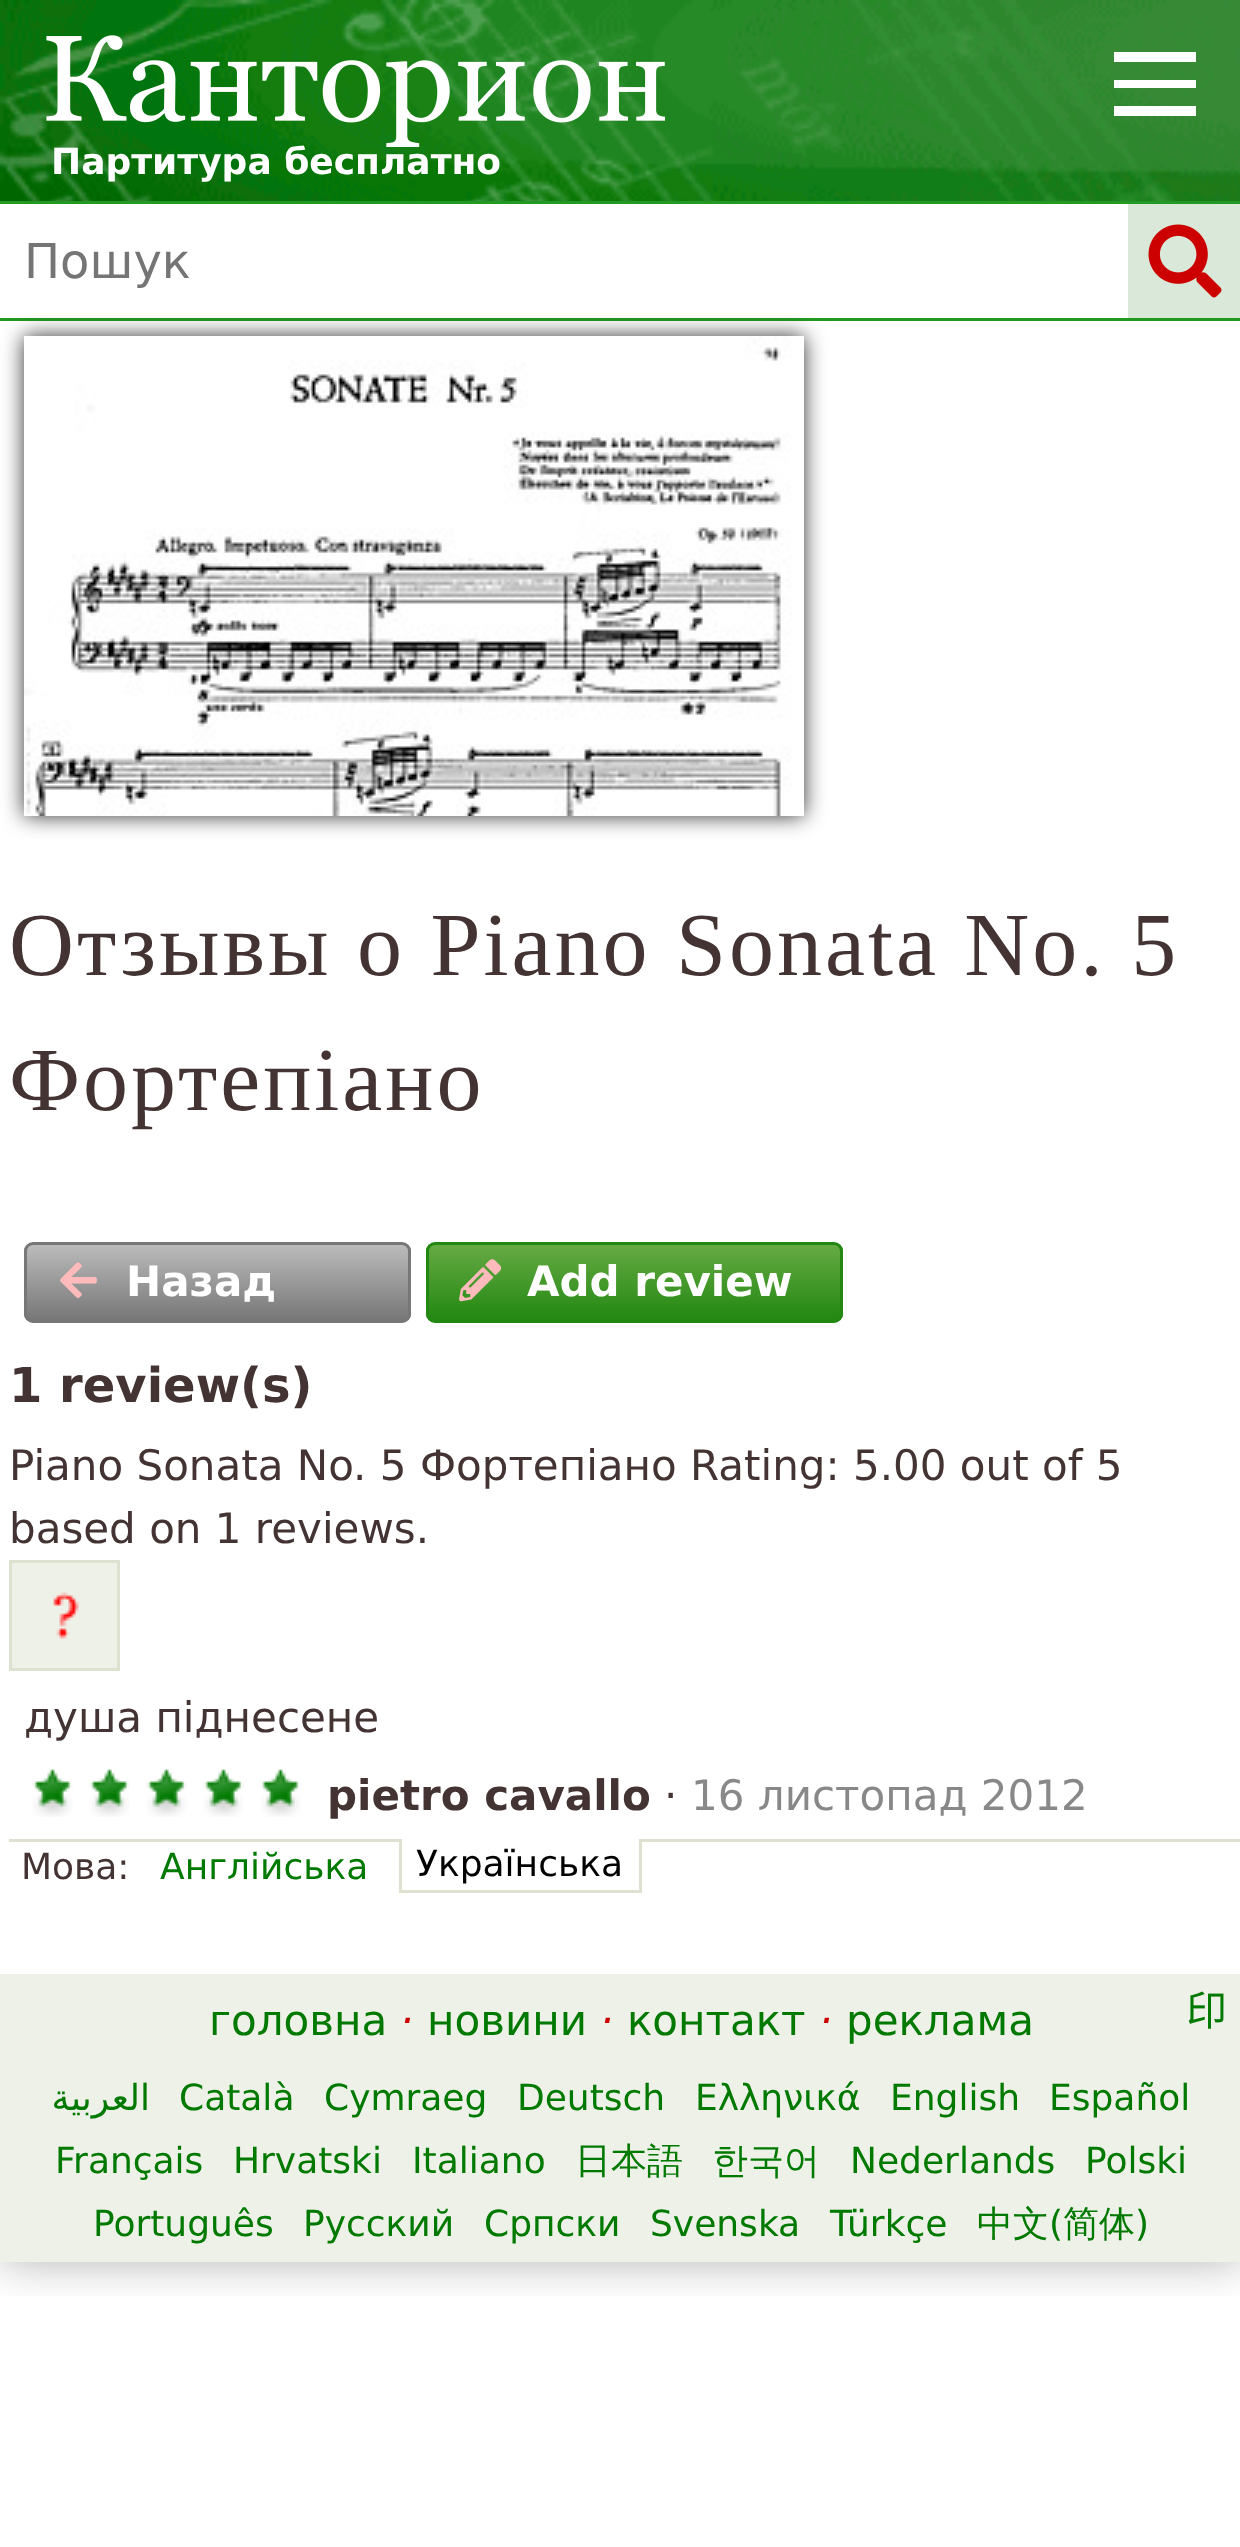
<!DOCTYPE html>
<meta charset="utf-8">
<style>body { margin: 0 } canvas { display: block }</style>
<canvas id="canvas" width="1240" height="2547"></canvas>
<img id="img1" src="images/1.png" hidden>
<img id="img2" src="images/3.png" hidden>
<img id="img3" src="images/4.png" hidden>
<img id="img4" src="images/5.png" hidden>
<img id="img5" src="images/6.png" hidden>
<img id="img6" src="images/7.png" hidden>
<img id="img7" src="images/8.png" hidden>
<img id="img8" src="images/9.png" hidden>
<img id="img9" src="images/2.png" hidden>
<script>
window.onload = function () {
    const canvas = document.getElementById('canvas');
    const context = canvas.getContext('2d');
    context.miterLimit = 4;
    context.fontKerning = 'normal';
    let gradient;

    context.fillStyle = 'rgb(255, 255, 255)';
    context.fillRect(0, 0, 1240, 2547);
    context.save();
    context.beginPath();
    context.rect(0, 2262, 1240, 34);
    context.clip();
    context.fillStyle = 'rgba(0, 0, 0, 0.3)';
    context.filter = 'blur(22.5px)';
    context.beginPath();
    context.rect(0, 0, 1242, 2262);
    context.fill();
    context.filter = 'none';
    context.restore();
    context.drawImage(document.getElementById('img1'), 0, 0, 1240, 201);
    context.fillStyle = 'rgb(34, 153, 34)';
    context.fillRect(0, 201, 1240, 3);
    context.fillRect(0, 318, 1240, 3);
    context.fillStyle = 'rgb(217, 232, 217)';
    context.fillRect(1128, 204, 112, 114);
    context.drawImage(document.getElementById('img2'), 1148, 224, 74, 74);
    context.fillStyle = 'rgb(255, 255, 255)';
    context.beginPath();
    context.moveTo(1114, 52);
    context.lineTo(1114, 62);
    context.lineTo(1196, 62);
    context.lineTo(1196, 52);
    context.closePath();
    context.moveTo(1114, 88);
    context.lineTo(1196, 88);
    context.lineTo(1196, 80);
    context.lineTo(1114, 80);
    context.closePath();
    context.moveTo(1114, 116);
    context.lineTo(1196, 116);
    context.lineTo(1196, 106);
    context.lineTo(1114, 106);
    context.closePath();
    context.fill();
    context.save();
    context.beginPath();
    context.moveTo(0, 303);
    context.lineTo(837, 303);
    context.lineTo(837, 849);
    context.lineTo(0, 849);
    context.closePath();
    context.moveTo(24, 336);
    context.lineTo(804, 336);
    context.lineTo(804, 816);
    context.lineTo(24, 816);
    context.closePath();
    context.clip('evenodd');
    context.fillStyle = 'rgba(0, 0, 0, 0.8)';
    context.filter = 'blur(10.5px)';
    context.beginPath();
    context.rect(24, 336, 780, 480);
    context.fill();
    context.filter = 'none';
    context.restore();
    context.drawImage(document.getElementById('img3'), 24, 336, 768, 480);
    context.save();
    context.beginPath();
    context.roundRect(24, 1242, 387, 81, 9);
    context.clip();
    gradient = context.createLinearGradient(218, 1245, 218, 1320);
    gradient.addColorStop(0, 'rgb(187, 187, 187)');
    gradient.addColorStop(1, 'rgb(119, 119, 119)');
    context.fillStyle = gradient;
    context.fillRect(24, 1245, 387, 75);
    context.restore();
    context.beginPath();
    context.roundRect(25.5, 1243.5, 384, 78, 7.5);
    context.strokeStyle = 'rgb(119, 119, 119)';
    context.lineWidth = 3;
    context.stroke();
    context.drawImage(document.getElementById('img4'), 60, 1262, 37, 37);
    context.save();
    context.beginPath();
    context.roundRect(426, 1242, 417, 81, 9);
    context.clip();
    gradient = context.createLinearGradient(635, 1245, 635, 1320);
    gradient.addColorStop(0, 'rgb(102, 170, 68)');
    gradient.addColorStop(1, 'rgb(34, 136, 17)');
    context.fillStyle = gradient;
    context.fillRect(426, 1245, 417, 75);
    context.restore();
    context.beginPath();
    context.roundRect(427.5, 1243.5, 414, 78, 7.5);
    context.strokeStyle = 'rgb(34, 136, 17)';
    context.stroke();
    context.drawImage(document.getElementById('img5'), 459, 1259, 43, 43);
    context.strokeStyle = 'rgb(220, 226, 207)';
    context.strokeRect(10.5, 1561.5, 108, 108);
    context.drawImage(document.getElementById('img6'), 12, 1563, 105, 105);
    context.drawImage(document.getElementById('img7'), 32, 1769, 41, 48);
    context.drawImage(document.getElementById('img7'), 89, 1769, 41, 48);
    context.drawImage(document.getElementById('img7'), 146, 1769, 41, 48);
    context.drawImage(document.getElementById('img7'), 203, 1769, 41, 48);
    context.drawImage(document.getElementById('img7'), 260, 1769, 41, 48);
    context.fillStyle = 'rgb(220, 226, 207)';
    context.fillRect(9, 1839, 1231, 3);
    context.fillStyle = 'rgb(255, 255, 255)';
    context.fillRect(402, 1839, 237, 3);
    context.fillStyle = 'rgb(220, 226, 207)';
    context.fillRect(639, 1839, 3, 54);
    context.fillRect(399, 1890, 243, 3);
    context.fillRect(399, 1839, 3, 54);
    context.fillStyle = 'rgb(238, 241, 231)';
    context.fillRect(0, 1974, 1240, 288);
    context.drawImage(document.getElementById('img8'), 1188, 1991, 36, 38);
    context.font = 'bold 36px DejaVu Sans';
    context.fillStyle = 'rgb(255, 255, 255)';
    context.fillText('Партитура бесплатно', 51, 174);
    context.drawImage(document.getElementById('img9'), 46, 35, 619, 112);
    context.font = '48px DejaVu Sans';
    context.fillStyle = 'rgb(117, 117, 117)';
    context.fillText('Пошук', 24, 278);
    context.letterSpacing = '3px';
    context.font = '90px Liberation Serif';
    context.fillStyle = 'rgb(68, 51, 51)';
    context.fillText('Отзывы о Piano Sonata No. 5', 9, 975);
    context.fillText('Фортепіано', 9, 1110);
    context.letterSpacing = '0px';
    context.font = 'bold 42px DejaVu Sans';
    context.fillStyle = 'rgb(255, 255, 255)';
    context.fillText('Назад', 126, 1296);
    context.fillText('Add review', 527, 1296);
    context.font = 'bold 48px DejaVu Sans';
    context.fillStyle = 'rgb(68, 51, 51)';
    context.fillText('1 review(s)', 9, 1402);
    context.font = '42px DejaVu Sans';
    context.fillText('Piano Sonata No. 5 Фортепіано Rating: 5.00 out of 5', 9, 1480);
    context.fillText('based on 1 reviews.', 9, 1543);
    context.fillText('душа піднесене', 24, 1732);
    context.font = 'bold 42px DejaVu Sans';
    context.fillText('pietro cavallo', 327, 1810);
    context.font = '42px DejaVu Sans';
    context.fillText('·', 664, 1810);
    context.fillStyle = 'rgb(136, 136, 136)';
    context.fillText('16 листопад 2012', 691, 1810);
    context.font = '36px DejaVu Sans';
    context.fillStyle = 'rgb(68, 51, 51)';
    context.fillText('Мова:', 21, 1879);
    context.fillStyle = 'rgb(0, 121, 0)';
    context.fillText('Англійська', 160, 1879);
    context.fillStyle = 'rgb(0, 0, 0)';
    context.fillText('Українська', 416, 1876);
    context.font = '42px DejaVu Sans';
    context.fillStyle = 'rgb(0, 121, 0)';
    context.fillText('головна', 209, 2035);
    context.font = 'italic 42px DejaVu Sans';
    context.fillStyle = 'rgb(204, 0, 0)';
    context.fillText('·', 400, 2035);
    context.font = '42px DejaVu Sans';
    context.fillStyle = 'rgb(0, 121, 0)';
    context.fillText('новини', 427, 2035);
    context.font = 'italic 42px DejaVu Sans';
    context.fillStyle = 'rgb(204, 0, 0)';
    context.fillText('·', 600, 2035);
    context.font = '42px DejaVu Sans';
    context.fillStyle = 'rgb(0, 121, 0)';
    context.fillText('контакт', 627, 2035);
    context.font = 'italic 42px DejaVu Sans';
    context.fillStyle = 'rgb(204, 0, 0)';
    context.fillText('·', 819, 2035);
    context.font = '42px DejaVu Sans';
    context.fillStyle = 'rgb(0, 121, 0)';
    context.fillText('реклама', 846, 2035);
    context.direction = 'rtl';
    context.font = '36px DejaVu Sans';
    context.fillText('العربية', 150, 2110);
    context.direction = 'ltr';
    context.fillText('Català', 179, 2110);
    context.fillText('Cymraeg', 324, 2110);
    context.fillText('Deutsch', 517, 2110);
    context.fillText('Ελληνικά', 695, 2110);
    context.fillText('English', 890, 2110);
    context.fillText('Español', 1049, 2110);
    context.fillText('Français', 55, 2173);
    context.fillText('Hrvatski', 233, 2173);
    context.fillText('Italiano', 412, 2173);
    context.font = '500 36px WenQuanYi Zen Hei';
    context.fillText('日本語', 575, 2173);
    context.fillText('한국어', 712, 2173);
    context.font = '36px DejaVu Sans';
    context.fillText('Nederlands', 850, 2173);
    context.fillText('Polski', 1085, 2173);
    context.fillText('Português', 93, 2236);
    context.fillText('Русский', 303, 2236);
    context.fillText('Српски', 484, 2236);
    context.fillText('Svenska', 650, 2236);
    context.fillText('Türkçe', 830, 2236);
    context.font = '500 36px WenQuanYi Zen Hei';
    context.fillText('中文', 977, 2236);
    context.font = '36px DejaVu Sans';
    context.fillText('(', 1049, 2236);
    context.font = '500 36px WenQuanYi Zen Hei';
    context.fillText('简体', 1063, 2236);
    context.font = '36px DejaVu Sans';
    context.fillText(')', 1135, 2236);
};
</script>
